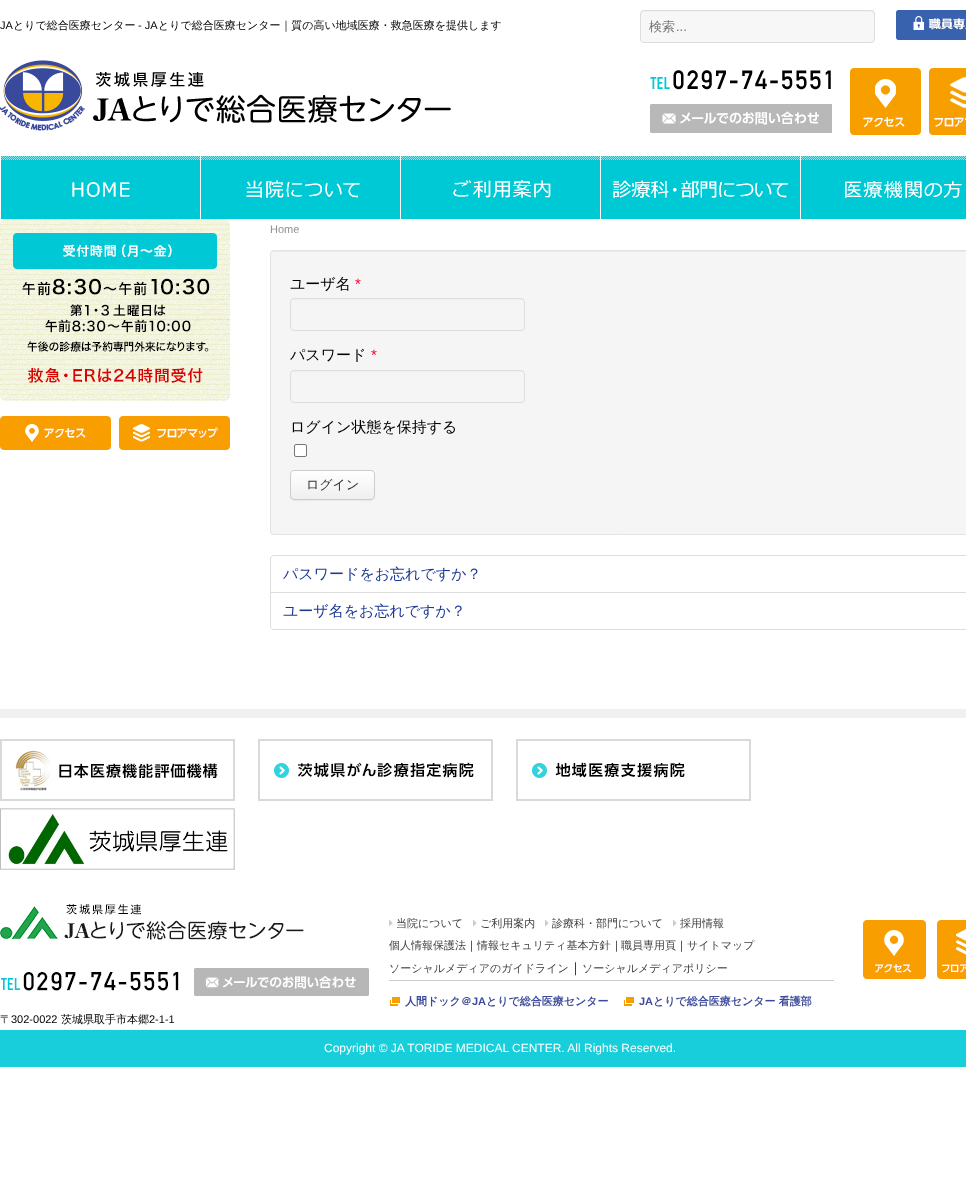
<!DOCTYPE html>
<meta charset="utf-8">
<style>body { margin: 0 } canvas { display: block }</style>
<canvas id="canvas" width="966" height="1200"></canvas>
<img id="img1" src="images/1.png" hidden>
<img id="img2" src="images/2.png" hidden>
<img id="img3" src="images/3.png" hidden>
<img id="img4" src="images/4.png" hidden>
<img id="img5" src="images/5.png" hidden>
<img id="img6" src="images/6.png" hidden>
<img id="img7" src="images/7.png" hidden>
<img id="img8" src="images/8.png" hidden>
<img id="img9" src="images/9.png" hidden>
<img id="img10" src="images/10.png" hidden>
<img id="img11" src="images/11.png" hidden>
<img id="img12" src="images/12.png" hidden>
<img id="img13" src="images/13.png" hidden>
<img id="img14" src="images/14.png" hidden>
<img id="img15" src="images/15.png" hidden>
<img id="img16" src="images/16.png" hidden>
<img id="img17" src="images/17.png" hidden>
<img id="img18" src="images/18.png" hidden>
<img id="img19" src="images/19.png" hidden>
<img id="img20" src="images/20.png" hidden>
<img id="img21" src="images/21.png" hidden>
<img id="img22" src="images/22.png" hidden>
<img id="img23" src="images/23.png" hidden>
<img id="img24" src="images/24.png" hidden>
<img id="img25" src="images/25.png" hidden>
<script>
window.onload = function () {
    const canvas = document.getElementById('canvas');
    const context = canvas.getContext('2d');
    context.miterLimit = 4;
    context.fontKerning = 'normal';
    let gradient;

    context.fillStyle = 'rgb(255, 255, 255)';
    context.fillRect(0, 0, 966, 1200);
    context.fillStyle = 'rgb(247, 247, 247)';
    context.beginPath();
    context.roundRect(640, 10, 235, 33, 4);
    context.fill();
    context.fillStyle = 'rgb(240, 240, 240)';
    context.beginPath();
    context.moveTo(644, 12);
    context.lineTo(871, 12);
    context.bezierCurveTo(873, 12, 874, 13, 874, 15);
    context.bezierCurveTo(874, 13, 873, 11, 871, 11);
    context.lineTo(644, 11);
    context.bezierCurveTo(642, 11, 641, 13, 641, 15);
    context.bezierCurveTo(641, 13, 642, 12, 644, 12);
    context.closePath();
    context.fill();
    context.beginPath();
    context.roundRect(640.5, 10.5, 234, 32, 3.5);
    context.strokeStyle = 'rgb(221, 221, 221)';
    context.stroke();
    context.drawImage(document.getElementById('img1'), 896, 10, 70, 30);
    context.drawImage(document.getElementById('img2'), 650, 70, 181, 20);
    context.drawImage(document.getElementById('img3'), 650, 104, 182, 29);
    context.drawImage(document.getElementById('img4'), 850, 68, 71, 67);
    context.drawImage(document.getElementById('img5'), 929, 68, 37, 67);
    context.drawImage(document.getElementById('img6'), 0, 60, 451, 71);
    context.drawImage(document.getElementById('img7'), 0, 156, 200, 63);
    context.drawImage(document.getElementById('img8'), 200, 156, 200, 63);
    context.drawImage(document.getElementById('img9'), 400, 156, 200, 63);
    context.drawImage(document.getElementById('img10'), 600, 156, 200, 63);
    context.drawImage(document.getElementById('img11'), 800, 156, 166, 63);
    context.drawImage(document.getElementById('img12'), 0, 219, 230, 182);
    context.drawImage(document.getElementById('img13'), 0, 416, 111, 34);
    context.drawImage(document.getElementById('img14'), 119, 416, 111, 34);
    context.fillStyle = 'rgb(245, 245, 245)';
    context.beginPath();
    context.roundRect(270, 250, 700, 285, 4);
    context.fill();
    context.fillStyle = 'rgb(233, 233, 233)';
    context.beginPath();
    context.moveTo(274, 252);
    context.lineTo(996, 252);
    context.bezierCurveTo(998, 252, 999, 253, 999, 255);
    context.bezierCurveTo(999, 253, 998, 251, 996, 251);
    context.lineTo(274, 251);
    context.bezierCurveTo(272, 251, 271, 253, 271, 255);
    context.bezierCurveTo(271, 253, 272, 252, 274, 252);
    context.closePath();
    context.fill();
    context.beginPath();
    context.roundRect(270.5, 250.5, 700, 284, 3.5);
    context.strokeStyle = 'rgb(227, 227, 227)';
    context.stroke();
    context.fillStyle = 'rgb(240, 240, 240)';
    context.beginPath();
    context.moveTo(294, 300);
    context.lineTo(521, 300);
    context.bezierCurveTo(523, 300, 524, 301, 524, 303);
    context.bezierCurveTo(524, 301, 523, 299, 521, 299);
    context.lineTo(294, 299);
    context.bezierCurveTo(292, 299, 291, 301, 291, 303);
    context.bezierCurveTo(291, 301, 292, 300, 294, 300);
    context.closePath();
    context.fill();
    context.beginPath();
    context.roundRect(290.5, 298.5, 234, 32, 3.5);
    context.strokeStyle = 'rgb(221, 221, 221)';
    context.stroke();
    context.beginPath();
    context.moveTo(294, 372);
    context.lineTo(521, 372);
    context.bezierCurveTo(523, 372, 524, 373, 524, 375);
    context.bezierCurveTo(524, 373, 523, 371, 521, 371);
    context.lineTo(294, 371);
    context.bezierCurveTo(292, 371, 291, 373, 291, 375);
    context.bezierCurveTo(291, 373, 292, 372, 294, 372);
    context.closePath();
    context.fill();
    context.beginPath();
    context.roundRect(290.5, 370.5, 234, 32, 3.5);
    context.stroke();
    context.fillStyle = 'rgb(255, 255, 255)';
    context.beginPath();
    context.roundRect(294.5, 444.5, 12, 12, 1.5);
    context.fill();
    context.strokeStyle = 'rgb(118, 118, 118)';
    context.stroke();
    context.fillStyle = 'rgb(233, 233, 233)';
    context.beginPath();
    context.moveTo(290, 496);
    context.bezierCurveTo(290, 504, 302, 501, 307, 501);
    context.lineTo(358, 501);
    context.bezierCurveTo(363, 501, 375, 504, 375, 496);
    context.bezierCurveTo(375, 498, 373, 500, 371, 500);
    context.lineTo(294, 500);
    context.bezierCurveTo(292, 500, 290, 498, 290, 496);
    context.closePath();
    context.fill();
    context.save();
    context.beginPath();
    context.roundRect(290, 470, 85, 30, 4);
    context.clip();
    gradient = context.createLinearGradient(333, 471, 333, 499);
    gradient.addColorStop(0, 'rgb(255, 255, 255)');
    gradient.addColorStop(1, 'rgb(239, 239, 239)');
    context.fillStyle = gradient;
    context.fillRect(290, 471, 85, 28);
    context.restore();
    context.beginPath();
    context.roundRect(290.5, 470.5, 84, 29, 3.5);
    context.strokeStyle = 'rgb(204, 204, 204)';
    context.stroke();
    context.beginPath();
    context.moveTo(274, 555.5);
    context.lineTo(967, 555.5);
    context.bezierCurveTo(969, 555.5, 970.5, 557, 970.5, 559);
    context.lineTo(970.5, 592.5);
    context.lineTo(270.5, 592.5);
    context.lineTo(270.5, 559);
    context.bezierCurveTo(270.5, 557, 272, 555.5, 274, 555.5);
    context.closePath();
    context.strokeStyle = 'rgb(221, 221, 221)';
    context.stroke();
    context.beginPath();
    context.moveTo(270.5, 592.5);
    context.lineTo(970.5, 592.5);
    context.lineTo(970.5, 626);
    context.bezierCurveTo(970.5, 628, 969, 629.5, 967, 629.5);
    context.lineTo(274, 629.5);
    context.bezierCurveTo(272, 629.5, 270.5, 628, 270.5, 626);
    context.closePath();
    context.stroke();
    context.fillStyle = 'rgb(240, 240, 240)';
    context.fillRect(0, 709, 966, 9);
    context.drawImage(document.getElementById('img15'), 0, 739, 235, 62);
    context.drawImage(document.getElementById('img16'), 258, 739, 235, 62);
    context.drawImage(document.getElementById('img17'), 516, 739, 235, 62);
    context.drawImage(document.getElementById('img18'), 0, 808, 235, 62);
    context.drawImage(document.getElementById('img19'), 389, 920, 4, 7);
    context.drawImage(document.getElementById('img19'), 473, 920, 4, 7);
    context.drawImage(document.getElementById('img19'), 545, 920, 4, 7);
    context.drawImage(document.getElementById('img19'), 673, 920, 4, 7);
    context.fillStyle = 'rgb(204, 204, 204)';
    context.fillRect(389, 980, 445, 1);
    context.drawImage(document.getElementById('img20'), 390, 997, 10, 9);
    context.drawImage(document.getElementById('img20'), 624, 997, 10, 9);
    context.drawImage(document.getElementById('img21'), 863, 920, 63, 59);
    context.drawImage(document.getElementById('img22'), 937, 920, 29, 59);
    context.drawImage(document.getElementById('img23'), 0, 904, 304, 36);
    context.drawImage(document.getElementById('img24'), 1, 972, 178, 19);
    context.drawImage(document.getElementById('img25'), 194, 968, 175, 28);
    context.fillStyle = 'rgb(24, 206, 218)';
    context.fillRect(0, 1030, 966, 37);
    context.font = '11px Liberation Sans';
    context.fillStyle = 'rgb(0, 0, 0)';
    context.fillText('JA', 0, 29);
    context.font = '500 11px WenQuanYi Zen Hei';
    context.fillText('とりで総合医療センター', 13, 29);
    context.font = '11px Liberation Sans';
    context.fillText('- JA', 138, 29);
    context.font = '500 11px WenQuanYi Zen Hei';
    context.fillText('とりで総合医療センター｜質の高い地域医療・救急医療を提供します', 158, 29);
    context.font = '500 13px WenQuanYi Zen Hei';
    context.fillStyle = 'rgb(117, 117, 117)';
    context.fillText('検索', 649, 31);
    context.font = '13px Liberation Sans';
    context.fillText('...', 676, 31);
    context.font = '11px Liberation Sans';
    context.fillStyle = 'rgb(144, 144, 144)';
    context.fillText('Home', 270, 233);
    context.font = '500 15px WenQuanYi Zen Hei';
    context.fillStyle = 'rgb(0, 0, 0)';
    context.fillText('ユーザ名', 290, 289);
    context.font = '15px Liberation Sans';
    context.fillStyle = 'rgb(255, 0, 42)';
    context.fillText('*', 355, 289);
    context.font = '500 15px WenQuanYi Zen Hei';
    context.fillStyle = 'rgb(0, 0, 0)';
    context.fillText('パスワード', 290, 360);
    context.font = '15px Liberation Sans';
    context.fillStyle = 'rgb(255, 0, 42)';
    context.fillText('*', 371, 360);
    context.font = '500 15px WenQuanYi Zen Hei';
    context.fillStyle = 'rgb(0, 0, 0)';
    context.fillText('ログイン状態を保持する', 290, 432);
    context.font = '500 13px WenQuanYi Zen Hei';
    context.fillStyle = 'rgb(51, 51, 51)';
    context.fillText('ログイン', 306, 489);
    context.font = '500 15px WenQuanYi Zen Hei';
    context.fillStyle = 'rgb(29, 57, 148)';
    context.fillText('パスワードをお忘れですか？', 283, 579);
    context.fillText('ユーザ名をお忘れですか？', 283, 616);
    context.font = '500 11px WenQuanYi Zen Hei';
    context.fillStyle = 'rgb(62, 62, 62)';
    context.fillText('当院について', 396, 927);
    context.fillText('ご利用案内', 480, 927);
    context.fillText('診療科・部門について', 552, 927);
    context.fillText('採用情報', 680, 927);
    context.fillText('個人情報保護法', 389, 949);
    context.fillStyle = 'rgb(0, 0, 0)';
    context.fillText('｜', 466, 949);
    context.fillStyle = 'rgb(62, 62, 62)';
    context.fillText('情報セキュリティ基本方針', 477, 949);
    context.fillStyle = 'rgb(0, 0, 0)';
    context.fillText('｜', 611, 949);
    context.fillStyle = 'rgb(62, 62, 62)';
    context.fillText('職員専用頁', 621, 949);
    context.fillStyle = 'rgb(0, 0, 0)';
    context.fillText('｜', 676, 949);
    context.fillStyle = 'rgb(62, 62, 62)';
    context.fillText('サイトマップ', 687, 949);
    context.fillText('ソーシャルメディアのガイドライン', 389, 972);
    context.font = '500 13px WenQuanYi Zen Hei';
    context.fillStyle = 'rgb(0, 0, 0)';
    context.fillText('｜', 569, 972);
    context.font = '500 11px WenQuanYi Zen Hei';
    context.fillStyle = 'rgb(62, 62, 62)';
    context.fillText('ソーシャルメディアポリシー', 582, 972);
    context.font = 'bold 11px WenQuanYi Zen Hei';
    context.fillStyle = 'rgb(60, 74, 155)';
    context.fillText('人間ドック＠', 405, 1005);
    context.font = 'bold 11px Liberation Sans';
    context.fillText('JA', 472, 1005);
    context.font = 'bold 11px WenQuanYi Zen Hei';
    context.fillText('とりで総合医療センター', 486, 1005);
    context.font = 'bold 11px Liberation Sans';
    context.fillText('JA', 639, 1005);
    context.font = 'bold 11px WenQuanYi Zen Hei';
    context.fillText('とりで総合医療センター 看護部', 653, 1005);
    context.font = '500 11px WenQuanYi Zen Hei';
    context.fillStyle = 'rgb(0, 0, 0)';
    context.fillText('〒', 0, 1023);
    context.font = '11px Liberation Sans';
    context.fillText('302-0022', 11, 1023);
    context.font = '500 11px WenQuanYi Zen Hei';
    context.fillText('茨城県取手市本郷', 61, 1023);
    context.font = '11px Liberation Sans';
    context.fillText('2-1-1', 149, 1023);
    context.font = '12px Liberation Sans';
    context.fillStyle = 'rgb(255, 255, 255)';
    context.fillText('Copyright © JA TORIDE MEDICAL CENTER. All Rights Reserved.', 324, 1052);
};
</script>
